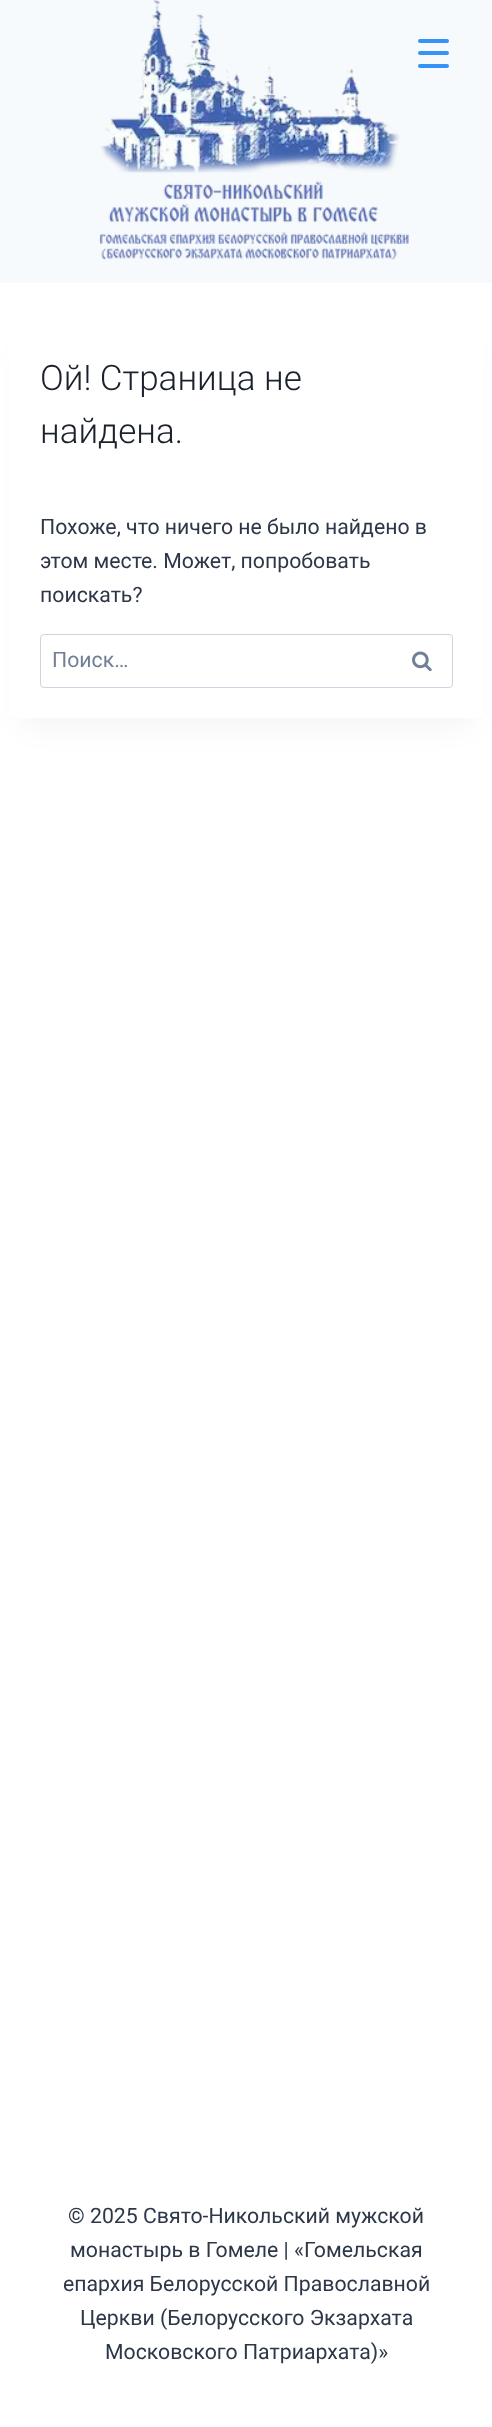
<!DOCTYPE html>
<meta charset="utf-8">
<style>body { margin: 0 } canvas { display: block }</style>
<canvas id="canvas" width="492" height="2427"></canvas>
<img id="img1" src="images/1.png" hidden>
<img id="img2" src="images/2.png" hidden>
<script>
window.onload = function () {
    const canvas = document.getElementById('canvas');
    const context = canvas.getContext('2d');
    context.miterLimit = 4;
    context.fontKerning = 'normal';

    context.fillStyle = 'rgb(255, 255, 255)';
    context.fillRect(0, 0, 492, 2427);
    context.fillStyle = 'rgb(247, 250, 252)';
    context.fillRect(0, 0, 492, 283);
    context.fillStyle = 'rgb(54, 146, 247)';
    context.beginPath();
    context.roundRect(418, 51, 31, 4, 2);
    context.fill();
    context.beginPath();
    context.roundRect(418, 39, 31, 4, 2);
    context.fill();
    context.beginPath();
    context.roundRect(418, 64, 31, 4, 2);
    context.fill();
    context.drawImage(document.getElementById('img1'), 99, 0, 310, 260);
    context.fillStyle = 'rgba(0, 0, 0, 0.05)';
    context.filter = 'blur(15.5px)';
    context.beginPath();
    context.rect(23, 354, 447, 370);
    context.fill();
    context.filter = 'none';
    context.fillStyle = 'rgb(255, 255, 255)';
    context.beginPath();
    context.roundRect(10, 323, 473, 395, 5);
    context.fill();
    context.beginPath();
    context.roundRect(40.5, 634.5, 412, 53, 3.5);
    context.strokeStyle = 'rgb(203, 213, 224)';
    context.stroke();
    context.drawImage(document.getElementById('img2'), 412, 651, 20, 20);
    context.font = '300 35px Roboto';
    context.fillStyle = 'rgb(26, 32, 44)';
    context.fillText('Ой! Страница не', 40, 390);
    context.fillText('найдена.', 40, 443);
    context.font = '21.25px Roboto';
    context.fillStyle = 'rgb(45, 55, 72)';
    context.fillText('Похоже, что ничего не было найдено в', 40, 534);
    context.fillText('этом месте. Может, попробовать', 40, 568);
    context.fillText('поискать?', 40, 602);
    context.fillStyle = 'rgb(113, 128, 150)';
    context.fillText('Поиск…', 52, 667);
    context.fillStyle = 'rgb(45, 55, 72)';
    context.fillText('© 2025 Свято-Никольский мужской', 68, 2223);
    context.fillText('монастырь в Гомеле | «Гомельская', 70, 2257);
    context.fillText('епархия Белорусской Православной', 63, 2291);
    context.fillText('Церкви (Белорусского Экзархата', 80, 2325);
    context.fillText('Московского Патриархата)»', 105, 2359);
};
</script>
